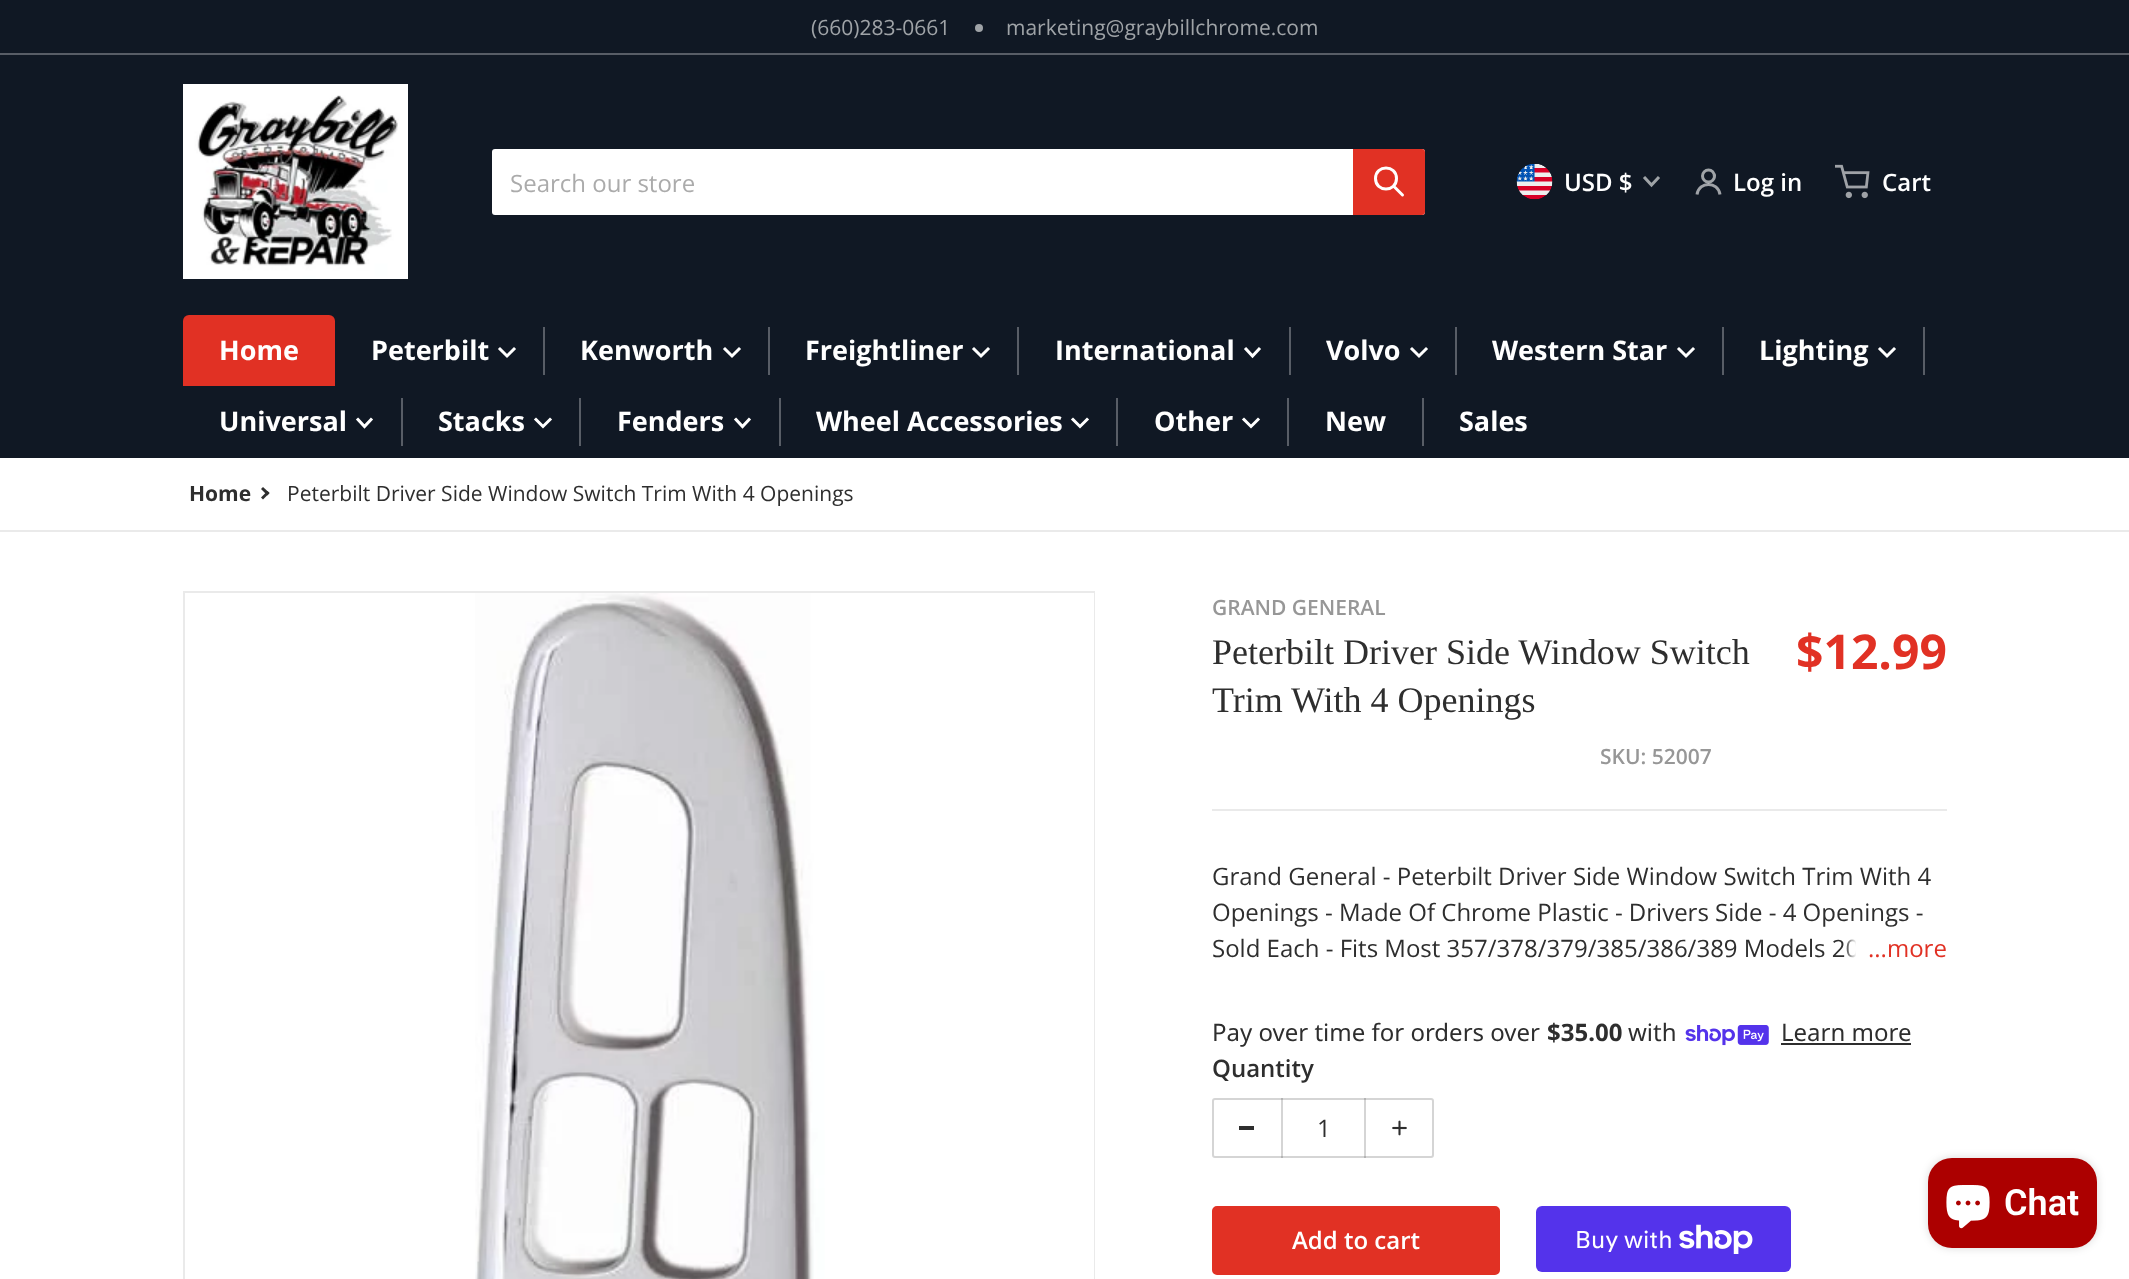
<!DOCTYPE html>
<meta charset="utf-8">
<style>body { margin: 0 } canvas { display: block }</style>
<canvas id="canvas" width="2129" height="1279"></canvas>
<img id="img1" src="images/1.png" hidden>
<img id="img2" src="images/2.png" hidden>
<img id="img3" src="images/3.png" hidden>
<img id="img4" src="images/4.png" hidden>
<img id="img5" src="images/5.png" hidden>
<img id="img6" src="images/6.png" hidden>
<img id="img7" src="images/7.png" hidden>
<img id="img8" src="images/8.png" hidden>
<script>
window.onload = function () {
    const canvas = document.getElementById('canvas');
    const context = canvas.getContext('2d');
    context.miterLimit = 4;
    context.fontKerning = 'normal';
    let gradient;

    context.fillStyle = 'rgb(255, 255, 255)';
    context.fillRect(0, 0, 2129, 1279);
    context.fillStyle = 'rgb(16, 24, 36)';
    context.fillRect(0, 0, 2129, 53);
    context.fillStyle = 'rgb(88, 93, 102)';
    context.fillRect(0, 53, 2129, 2);
    context.fillStyle = 'rgb(159, 163, 167)';
    context.beginPath();
    context.arc(979, 28, 4, 0, 2 * Math.PI);
    context.fill();
    context.fillStyle = 'rgb(16, 24, 36)';
    context.fillRect(0, 55, 2129, 403);
    context.drawImage(document.getElementById('img1'), 183, 84, 225, 195);
    context.fillStyle = 'rgb(255, 255, 255)';
    context.beginPath();
    context.roundRect(492, 149, 933, 66, 3);
    context.fill();
    context.fillStyle = 'rgb(225, 49, 36)';
    context.beginPath();
    context.roundRect(1353, 149, 72, 66, [0, 3, 3, 0]);
    context.fill();
    context.beginPath();
    context.moveTo(1402.5, 195);
    context.lineTo(1393.5, 186);
    context.moveTo(1396.5, 178.5);
    context.bezierCurveTo(1396.5, 192.5, 1375.5, 192.5, 1375.5, 178.5);
    context.bezierCurveTo(1375.5, 164.5, 1396.5, 164.5, 1396.5, 178.5);
    context.closePath();
    context.strokeStyle = 'rgb(255, 255, 255)';
    context.lineWidth = 3;
    context.lineCap = 'round';
    context.lineJoin = 'round';
    context.stroke();
    context.drawImage(document.getElementById('img2'), 1516, 164, 37, 36);
    context.beginPath();
    context.moveTo(1645, 178);
    context.lineTo(1651.5, 185);
    context.lineTo(1658, 178);
    context.strokeStyle = 'rgb(159, 163, 167)';
    context.lineCap = 'square';
    context.lineJoin = 'miter';
    context.stroke();
    context.beginPath();
    context.arc(1708.5, 176, 6, 0, 2 * Math.PI);
    context.stroke();
    context.beginPath();
    context.moveTo(1720, 194.5);
    context.bezierCurveTo(1718, 181, 1699, 181, 1697, 194.5);
    context.strokeStyle = 'rgba(255, 255, 255, 0.6)';
    context.lineCap = 'butt';
    context.stroke();
    context.drawImage(document.getElementById('img3'), 1835, 164, 35, 35);
    context.beginPath();
    context.roundRect(183, 315, 152, 71, [6, 6, 0, 0]);
    context.fill();
    context.beginPath();
    context.moveTo(500, 349);
    context.lineTo(507, 356);
    context.lineTo(514, 349);
    context.strokeStyle = 'rgb(255, 255, 255)';
    context.lineCap = 'square';
    context.stroke();
    context.fillStyle = 'rgb(88, 93, 102)';
    context.fillRect(543, 327, 2, 48);
    context.beginPath();
    context.moveTo(725, 349);
    context.lineTo(732, 356);
    context.lineTo(739, 349);
    context.stroke();
    context.fillRect(768, 327, 2, 48);
    context.beginPath();
    context.moveTo(974, 349);
    context.lineTo(981, 356);
    context.lineTo(988, 349);
    context.stroke();
    context.fillRect(1017, 327, 2, 48);
    context.beginPath();
    context.moveTo(1246, 349);
    context.lineTo(1252.5, 356);
    context.lineTo(1259, 349);
    context.stroke();
    context.fillRect(1289, 327, 2, 48);
    context.beginPath();
    context.moveTo(1412, 349);
    context.lineTo(1419, 356);
    context.lineTo(1426, 349);
    context.stroke();
    context.fillRect(1455, 327, 2, 48);
    context.beginPath();
    context.moveTo(1679, 349);
    context.lineTo(1686, 356);
    context.lineTo(1693, 349);
    context.stroke();
    context.fillRect(1722, 327, 2, 48);
    context.beginPath();
    context.moveTo(1880, 349);
    context.lineTo(1887, 356);
    context.lineTo(1894, 349);
    context.stroke();
    context.fillRect(1923, 327, 2, 48);
    context.beginPath();
    context.moveTo(358, 419.5);
    context.lineTo(364.5, 426.5);
    context.lineTo(371, 419.5);
    context.stroke();
    context.fillRect(401, 398, 2, 48);
    context.beginPath();
    context.moveTo(536, 419.5);
    context.lineTo(543, 426.5);
    context.lineTo(550, 419.5);
    context.stroke();
    context.fillRect(579, 398, 2, 48);
    context.beginPath();
    context.moveTo(736, 419.5);
    context.lineTo(742.5, 426.5);
    context.lineTo(749, 419.5);
    context.stroke();
    context.fillRect(779, 398, 2, 48);
    context.beginPath();
    context.moveTo(1073, 419.5);
    context.lineTo(1080, 426.5);
    context.lineTo(1087, 419.5);
    context.stroke();
    context.fillRect(1116, 398, 2, 48);
    context.beginPath();
    context.moveTo(1244, 419.5);
    context.lineTo(1251, 426.5);
    context.lineTo(1258, 419.5);
    context.stroke();
    context.fillRect(1287, 398, 2, 48);
    context.fillRect(1422, 398, 2, 48);
    context.fillStyle = 'rgb(234, 234, 234)';
    context.fillRect(0, 530, 2129, 2);
    context.fillStyle = 'rgb(46, 46, 46)';
    context.beginPath();
    context.moveTo(261, 489);
    context.lineTo(263, 487);
    context.lineTo(269.5, 493);
    context.lineTo(267.5, 495.5);
    context.closePath();
    context.fill();
    context.beginPath();
    context.moveTo(261, 497.5);
    context.lineTo(267.5, 491);
    context.lineTo(269.5, 493);
    context.lineTo(263, 499.5);
    context.closePath();
    context.fill();
    context.strokeStyle = 'rgb(234, 234, 234)';
    context.lineWidth = 2;
    context.strokeRect(184, 592, 910, 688);
    context.drawImage(document.getElementById('img4'), 475, 593, 619, 686);
    context.fillStyle = 'rgb(234, 234, 234)';
    context.fillRect(1212, 809, 735, 2);
    context.drawImage(document.getElementById('img5'), 1685, 1025, 84, 21);
    context.fillStyle = 'rgb(46, 46, 46)';
    context.fillRect(1781, 1043, 130, 2);
    context.beginPath();
    context.roundRect(1213, 1099, 220, 58, 2);
    context.strokeStyle = 'rgb(213, 213, 213)';
    context.stroke();
    context.fillRect(1239, 1126, 15, 4);
    context.fillStyle = 'rgba(46, 46, 46, 0.2)';
    context.fillRect(1364, 1098, 2, 60);
    context.fillRect(1281, 1098, 2, 60);
    context.drawImage(document.getElementById('img6'), 1392, 1120, 15, 16);
    context.fillStyle = 'rgb(225, 49, 36)';
    context.beginPath();
    context.roundRect(1213, 1207, 286, 67, 4);
    context.fill();
    context.strokeStyle = 'rgb(225, 49, 36)';
    context.stroke();
    context.fillStyle = 'rgb(84, 51, 235)';
    context.beginPath();
    context.roundRect(1536, 1206, 255, 66, 6);
    context.fill();
    context.drawImage(document.getElementById('img7'), 1679, 1224, 74, 30);
    context.fillStyle = 'rgba(0, 0, 0, 0.15)';
    context.filter = 'blur(4px)';
    context.beginPath();
    context.roundRect(1928, 1158, 169, 90, 24);
    context.fill();
    context.filter = 'none';
    context.fillStyle = 'rgb(172, 0, 0)';
    context.beginPath();
    context.roundRect(1928, 1158, 169, 90, 24);
    context.fill();
    context.drawImage(document.getElementById('img8'), 1946, 1185, 44, 44);
    context.font = '21px Open Sans';
    context.fillStyle = 'rgb(159, 163, 167)';
    context.fillText('(660)283-0661', 811, 35);
    context.fillText('marketing@graybillchrome.com', 1006, 35);
    context.font = '24px Open Sans';
    context.fillStyle = 'rgb(171, 171, 171)';
    context.fillText('Search our store', 510, 192);
    context.font = '600 24px Open Sans';
    context.fillStyle = 'rgb(255, 255, 255)';
    context.fillText('USD $', 1564, 191);
    context.fillText('Log in', 1733, 191);
    context.fillText('Cart', 1882, 191);
    context.font = 'bold 27px Open Sans';
    context.fillText('Home', 219, 360);
    context.fillText('Peterbilt', 371, 360);
    context.fillText('Kenworth', 580, 360);
    context.fillText('Freightliner', 805, 360);
    context.fillText('International', 1055, 360);
    context.fillText('Volvo', 1326, 360);
    context.fillText('Western Star', 1492, 360);
    context.fillText('Lighting', 1759, 360);
    context.fillText('Universal', 219, 431);
    context.fillText('Stacks', 438, 431);
    context.fillText('Fenders', 617, 431);
    context.fillText('Wheel Accessories', 816, 431);
    context.fillText('Other', 1154, 431);
    context.fillText('New', 1325, 431);
    context.fillText('Sales', 1459, 431);
    context.font = 'bold 21px Open Sans';
    context.fillStyle = 'rgb(46, 46, 46)';
    context.fillText('Home', 189, 501);
    context.font = '21px Open Sans';
    context.fillText('Peterbilt Driver Side Window Switch Trim With 4 Openings', 287, 501);
    context.font = '600 21px Open Sans';
    context.fillStyle = 'rgb(151, 151, 151)';
    context.fillText('GRAND GENERAL', 1212, 615);
    context.font = '36px Liberation Serif';
    context.fillStyle = 'rgb(46, 46, 46)';
    context.fillText('Peterbilt Driver Side Window Switch', 1212, 664);
    context.fillText('Trim With 4 Openings', 1212, 712);
    context.font = '600 21px Open Sans';
    context.fillStyle = 'rgb(151, 151, 151)';
    context.fillText('SKU: 52007', 1600, 764);
    context.font = 'bold 48px Open Sans';
    context.fillStyle = 'rgb(225, 49, 36)';
    context.fillText('$12.99', 1796, 669);
    context.font = '24px Open Sans';
    context.fillStyle = 'rgb(46, 46, 46)';
    context.fillText('Grand General - Peterbilt Driver Side Window Switch Trim With 4', 1212, 885);
    context.fillText('Openings - Made Of Chrome Plastic - Drivers Side - 4 Openings -', 1212, 921);
    context.fillText('Sold Each - Fits Most 357/378/379/385/386/389 Models 20', 1212, 957);
    gradient = context.createLinearGradient(1844, 948, 1947, 948);
    gradient.addColorStop(0, 'rgba(255, 255, 255, 0)');
    gradient.addColorStop(0.12, 'rgb(255, 255, 255)');
    context.fillStyle = gradient;
    context.fillRect(1844, 939, 15, 19);
    context.fillStyle = 'rgb(225, 49, 36)';
    context.fillText('...more', 1868, 957);
    context.font = '24px Noto Sans';
    context.fillStyle = 'rgb(46, 46, 46)';
    context.fillText('Pay over time for orders over', 1212, 1041);
    context.font = 'bold 24px Noto Sans';
    context.fillText('$35.00', 1547, 1041);
    context.font = '24px Noto Sans';
    context.fillText('with', 1628, 1041);
    context.fillText('Learn more', 1781, 1041);
    context.font = '600 24px Open Sans';
    context.fillText('Quantity', 1212, 1077);
    context.font = '24px Open Sans';
    context.fillText('1', 1317, 1137);
    context.font = '600 24px Open Sans';
    context.fillStyle = 'rgb(255, 255, 255)';
    context.fillText('Add to cart', 1292, 1249);
    context.font = '24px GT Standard';
    context.fillText('Buy with', 1575, 1248);
    context.font = '600 36px Roboto';
    context.fillText('Chat', 2004, 1215);
};
</script>
